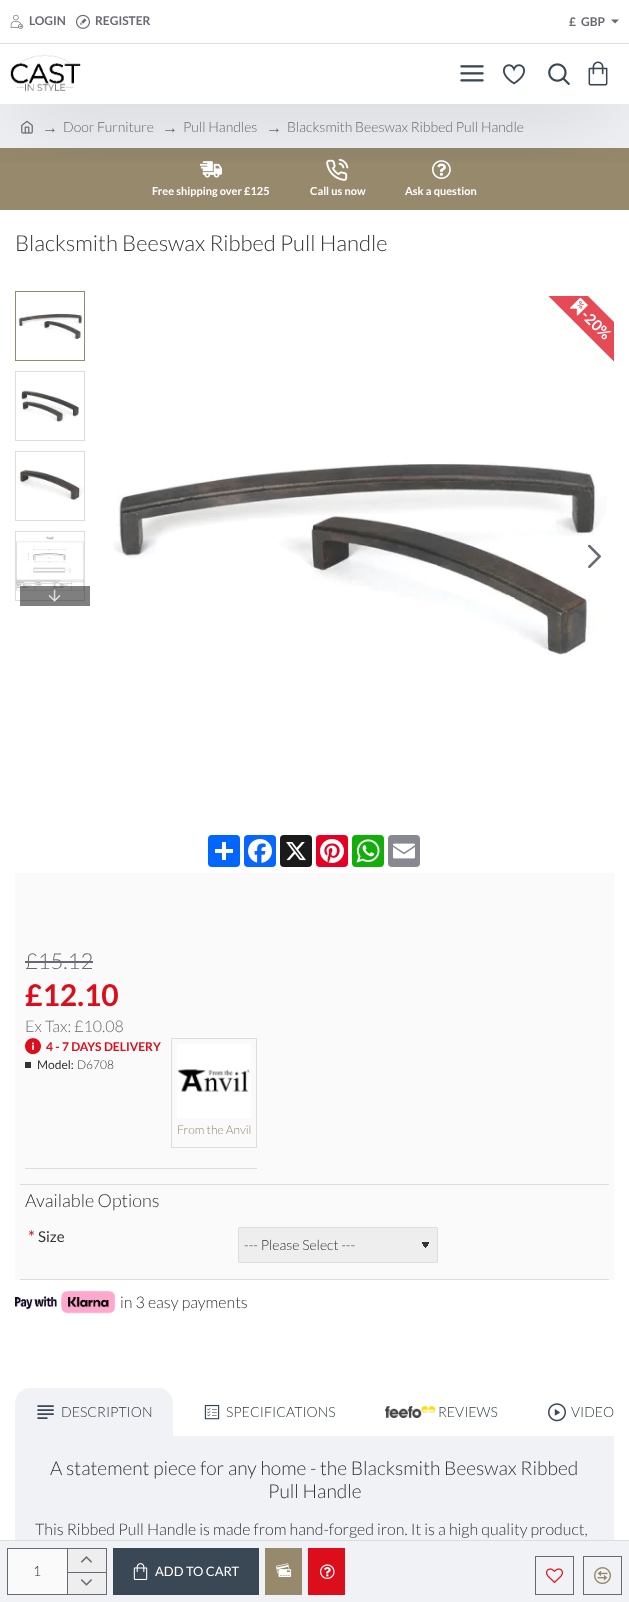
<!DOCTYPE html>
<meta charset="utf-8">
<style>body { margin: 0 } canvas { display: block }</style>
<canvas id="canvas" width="629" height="1602"></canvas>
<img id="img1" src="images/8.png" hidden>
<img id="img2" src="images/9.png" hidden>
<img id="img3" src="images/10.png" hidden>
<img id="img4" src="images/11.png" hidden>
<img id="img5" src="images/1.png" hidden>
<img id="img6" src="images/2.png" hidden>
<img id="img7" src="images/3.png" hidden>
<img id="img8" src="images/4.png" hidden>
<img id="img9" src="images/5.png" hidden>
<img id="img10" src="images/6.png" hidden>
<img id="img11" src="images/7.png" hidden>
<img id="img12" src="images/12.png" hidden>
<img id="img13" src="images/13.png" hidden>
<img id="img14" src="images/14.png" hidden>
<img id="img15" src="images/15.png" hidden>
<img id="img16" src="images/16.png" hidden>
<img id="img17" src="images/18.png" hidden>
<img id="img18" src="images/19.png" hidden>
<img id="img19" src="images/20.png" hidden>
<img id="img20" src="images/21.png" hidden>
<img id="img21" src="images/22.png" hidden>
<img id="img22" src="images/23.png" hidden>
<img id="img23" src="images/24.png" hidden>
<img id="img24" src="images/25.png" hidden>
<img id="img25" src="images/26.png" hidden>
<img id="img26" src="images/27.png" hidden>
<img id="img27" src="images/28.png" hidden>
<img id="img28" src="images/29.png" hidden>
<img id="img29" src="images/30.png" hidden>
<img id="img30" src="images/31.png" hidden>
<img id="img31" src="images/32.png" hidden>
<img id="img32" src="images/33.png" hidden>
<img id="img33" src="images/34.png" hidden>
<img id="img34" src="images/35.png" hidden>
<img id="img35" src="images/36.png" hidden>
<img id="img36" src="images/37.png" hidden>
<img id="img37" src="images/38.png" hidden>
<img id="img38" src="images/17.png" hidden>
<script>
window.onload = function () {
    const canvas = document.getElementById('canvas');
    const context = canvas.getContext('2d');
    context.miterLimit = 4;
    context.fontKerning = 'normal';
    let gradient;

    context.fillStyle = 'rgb(255, 255, 255)';
    context.fillRect(0, 0, 629, 1602);
    context.fillStyle = 'rgb(240, 242, 245)';
    context.fillRect(0, 104, 629, 44);
    context.drawImage(document.getElementById('img1'), 21, 120, 12, 14);
    context.fillStyle = 'rgb(150, 137, 108)';
    context.fillRect(0, 148, 629, 62);
    context.drawImage(document.getElementById('img2'), 200, 161, 22, 17);
    context.drawImage(document.getElementById('img3'), 326, 158, 23, 23);
    context.drawImage(document.getElementById('img4'), 432, 160, 19, 19);
    context.save();
    context.beginPath();
    context.rect(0, 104, 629, 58);
    context.clip();
    context.fillStyle = 'rgba(0, 0, 0, 0.2)';
    context.filter = 'blur(45px)';
    context.beginPath();
    context.rect(10, 69, 609, 40);
    context.fill();
    context.filter = 'none';
    context.restore();
    context.drawImage(document.getElementById('img5'), 10, 54, 71, 37);
    context.drawImage(document.getElementById('img6'), 460, 65, 24, 17);
    context.drawImage(document.getElementById('img7'), 503, 64, 22, 21);
    context.drawImage(document.getElementById('img8'), 548, 63, 22, 22);
    context.drawImage(document.getElementById('img9'), 588, 61, 20, 25);
    context.fillStyle = 'rgb(255, 255, 255)';
    context.fillRect(0, 0, 629, 43);
    context.fillStyle = 'rgb(221, 221, 221)';
    context.fillRect(0, 43, 629, 1);
    context.drawImage(document.getElementById('img10'), 10, 14, 14, 15);
    context.drawImage(document.getElementById('img11'), 76, 14, 14, 15);
    context.fillStyle = 'rgb(105, 105, 115)';
    context.beginPath();
    context.moveTo(611, 19.5);
    context.lineTo(619, 19.5);
    context.lineTo(615, 23.5);
    context.closePath();
    context.fill();
    context.strokeStyle = 'rgb(150, 137, 108)';
    context.strokeRect(15.5, 291.5, 69, 69);
    context.drawImage(document.getElementById('img12'), 16, 312, 68, 28);
    context.strokeStyle = 'rgb(221, 221, 221)';
    context.strokeRect(15.5, 371.5, 69, 69);
    context.drawImage(document.getElementById('img13'), 20, 390, 61, 33);
    context.strokeRect(15.5, 451.5, 69, 69);
    context.drawImage(document.getElementById('img14'), 17, 469, 67, 31);
    context.strokeRect(15.5, 531.5, 69, 69);
    context.drawImage(document.getElementById('img15'), 16, 535, 68, 56);
    context.fillStyle = 'rgba(0, 0, 0, 0.5)';
    context.fillRect(20, 586, 70, 20);
    context.drawImage(document.getElementById('img16'), 48, 589, 13, 13);
    context.save();
    context.beginPath();
    context.rect(95, 296, 519, 519);
    context.clip();
    context.fillStyle = 'rgb(230, 74, 85)';
    context.beginPath();
    context.moveTo(329, 37);
    context.lineTo(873, 581);
    context.bezierCurveTo(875, 583, 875, 586, 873, 588);
    context.lineTo(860, 600);
    context.bezierCurveTo(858, 602, 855, 602, 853, 600);
    context.lineTo(309, 57);
    context.bezierCurveTo(307, 55, 307, 52, 309, 50);
    context.lineTo(322, 37);
    context.bezierCurveTo(324, 35, 327, 35, 329, 37);
    context.closePath();
    context.fill();
    context.restore();
    context.drawImage(document.getElementById('img17'), 113, 462, 494, 193);
    context.drawImage(document.getElementById('img18'), 588, 544, 13, 25);
    context.fillStyle = 'rgb(1, 102, 255)';
    context.beginPath();
    context.roundRect(208, 835, 32, 32, 4);
    context.fill();
    context.fillStyle = 'rgb(255, 255, 255)';
    context.fillRect(222, 842, 4, 18);
    context.fillRect(215, 849, 18, 4);
    context.fillStyle = 'rgb(8, 102, 255)';
    context.beginPath();
    context.roundRect(244, 835, 32, 32, 4);
    context.fill();
    context.drawImage(document.getElementById('img19'), 248, 839, 24, 24);
    context.fillStyle = 'rgb(26, 26, 26)';
    context.beginPath();
    context.roundRect(280, 835, 32, 32, 4);
    context.fill();
    context.drawImage(document.getElementById('img20'), 286, 842, 20, 19);
    context.fillStyle = 'rgb(230, 0, 35)';
    context.beginPath();
    context.roundRect(316, 835, 32, 32, 4);
    context.fill();
    context.drawImage(document.getElementById('img21'), 320, 839, 24, 24);
    context.fillStyle = 'rgb(18, 175, 10)';
    context.beginPath();
    context.roundRect(352, 835, 32, 32, 4);
    context.fill();
    context.drawImage(document.getElementById('img22'), 356, 839, 24, 24);
    context.fillStyle = 'rgb(136, 137, 144)';
    context.beginPath();
    context.roundRect(388, 835, 32, 32, 4);
    context.fill();
    context.drawImage(document.getElementById('img23'), 393, 843, 22, 16);
    context.fillStyle = 'rgb(250, 250, 250)';
    context.fillRect(15, 873, 599, 407);
    context.fillStyle = 'rgb(105, 105, 115)';
    context.fillRect(25, 961, 68, 2);
    context.fillStyle = 'rgb(221, 221, 221)';
    context.fillRect(25, 1168, 232, 1);
    context.drawImage(document.getElementById('img24'), 25, 1038, 16, 17);
    context.fillStyle = 'rgb(51, 51, 51)';
    context.fillRect(25, 1062, 6, 6);
    context.strokeRect(171.5, 1038.5, 85, 109);
    context.drawImage(document.getElementById('img25'), 177, 1044, 74, 74);
    context.fillStyle = 'rgb(221, 221, 221)';
    context.fillRect(20, 1184, 589, 1);
    context.fillRect(20, 1279, 589, 1);
    context.fillStyle = 'rgb(238, 238, 238)';
    context.beginPath();
    context.roundRect(238, 1227, 200, 36, 2);
    context.fill();
    gradient = context.createLinearGradient(432, 1241, 419, 1249);
    gradient.addColorStop(0.63, 'rgb(51, 51, 51)');
    gradient.addColorStop(0.63, 'rgb(238, 238, 238)');
    context.fillStyle = gradient;
    context.fillRect(418, 1242, 15, 6);
    gradient = context.createLinearGradient(419, 1241, 432, 1249);
    gradient.addColorStop(0.63, 'rgba(238, 238, 238, 0)');
    gradient.addColorStop(0.63, 'rgb(238, 238, 238)');
    context.fillStyle = gradient;
    context.fillRect(418, 1242, 15, 6);
    context.beginPath();
    context.roundRect(238.5, 1227.5, 199, 35, 1.5);
    context.stroke();
    context.fillStyle = 'rgb(240, 242, 245)';
    context.fillRect(0, 1541, 629, 61);
    context.fillStyle = 'rgb(221, 221, 221)';
    context.fillRect(0, 1540, 629, 1);
    context.strokeStyle = 'rgb(105, 105, 115)';
    context.strokeRect(7.5, 1548.5, 99, 46);
    context.fillStyle = 'rgb(250, 250, 250)';
    context.fillRect(8, 1549, 59, 45);
    context.fillStyle = 'rgb(238, 238, 238)';
    context.fillRect(68, 1549, 38, 23);
    context.fillStyle = 'rgb(105, 105, 115)';
    context.fillRect(67, 1549, 1, 23);
    context.drawImage(document.getElementById('img26'), 80, 1556, 12, 7);
    context.fillStyle = 'rgb(238, 238, 238)';
    context.fillRect(68, 1573, 38, 21);
    context.fillStyle = 'rgb(105, 105, 115)';
    context.fillRect(67, 1572, 39, 1);
    context.fillRect(67, 1572, 1, 22);
    context.drawImage(document.getElementById('img27'), 80, 1579, 12, 7);
    context.fillStyle = 'rgb(58, 71, 84)';
    context.fillRect(113, 1548, 146, 47);
    context.drawImage(document.getElementById('img28'), 133, 1563, 15, 17);
    context.fillStyle = 'rgb(150, 137, 108)';
    context.fillRect(265, 1548, 37, 47);
    context.drawImage(document.getElementById('img29'), 276, 1563, 16, 14);
    context.fillStyle = 'rgb(221, 14, 28)';
    context.fillRect(308, 1548, 37, 47);
    context.drawImage(document.getElementById('img30'), 320, 1564, 15, 15);
    context.strokeRect(535.5, 1556.5, 38, 38);
    context.drawImage(document.getElementById('img31'), 546, 1568, 17, 15);
    context.strokeRect(583.5, 1556.5, 38, 38);
    context.drawImage(document.getElementById('img32'), 594, 1567, 17, 17);
    context.drawImage(document.getElementById('img33'), 15, 1290, 100, 24);
    context.fillStyle = 'rgb(240, 242, 245)';
    context.beginPath();
    context.roundRect(15, 1388, 158, 48, [15, 15, 0, 0]);
    context.fill();
    context.drawImage(document.getElementById('img34'), 37, 1405, 17, 14);
    context.drawImage(document.getElementById('img35'), 204, 1404, 16, 16);
    context.drawImage(document.getElementById('img36'), 385, 1406, 50, 12);
    context.drawImage(document.getElementById('img37'), 548, 1403, 18, 19);
    context.fillRect(15, 1436, 599, 104);
    context.font = 'bold 12px Lato';
    context.fillStyle = 'rgb(105, 105, 115)';
    context.fillText('LOGIN', 29, 25);
    context.fillText('REGISTER', 95, 25);
    context.fillText('£', 569, 26);
    context.fillText('GBP', 581, 26);
    context.font = '16px Liberation Serif';
    context.fillText('→', 42, 133);
    context.font = '300 14px Lato';
    context.fillText('Door Furniture', 63, 132);
    context.font = '16px Liberation Serif';
    context.fillText('→', 162, 133);
    context.font = '300 14px Lato';
    context.fillText('Pull Handles', 183, 132);
    context.font = '16px Liberation Serif';
    context.fillText('→', 266, 133);
    context.font = '300 14px Lato';
    context.fillText('Blacksmith Beeswax Ribbed Pull Handle', 287, 132);
    context.font = 'bold 11px Lato';
    context.fillStyle = 'rgb(255, 255, 255)';
    context.fillText('Free shipping over £125', 152, 195);
    context.fillText('Call us now', 310, 195);
    context.fillText('Ask a question', 405, 195);
    context.font = '300 22px Lato';
    context.fillStyle = 'rgb(51, 51, 51)';
    context.fillText('Blacksmith Beeswax Ribbed Pull Handle', 15, 251);
    context.font = 'bold 15px Lato';
    context.fillStyle = 'rgb(255, 255, 255)';
    context.save();
    context.translate(580, 316);
    context.rotate(45 * Math.PI / 180);
    context.fillText('-20%', 0, 0);
    context.restore();
    context.drawImage(document.getElementById('img38'), 570, 297, 18, 19);
    context.font = '300 22px Lato';
    context.fillStyle = 'rgb(105, 105, 115)';
    context.fillText('£15.12', 25, 969);
    context.font = 'bold 30px Lato';
    context.fillStyle = 'rgb(221, 14, 28)';
    context.fillText('£12.10', 25, 1006);
    context.font = '300 16px Lato';
    context.fillStyle = 'rgb(105, 105, 115)';
    context.fillText('Ex Tax: £10.08', 25, 1032);
    context.font = 'bold 12px Lato';
    context.fillStyle = 'rgb(221, 14, 28)';
    context.fillText('4 - 7 DAYS DELIVERY', 46, 1051);
    context.font = '12px Lato';
    context.fillStyle = 'rgb(51, 51, 51)';
    context.fillText('Model:', 37, 1069);
    context.font = '300 12px Lato';
    context.fillText('D6708', 77, 1069);
    context.fillStyle = 'rgb(150, 137, 108)';
    context.fillText('From the Anvil', 177, 1134);
    context.font = '300 18px Lato';
    context.fillStyle = 'rgb(51, 51, 51)';
    context.fillText('Available Options', 25, 1207);
    context.font = '17px Lato';
    context.fillStyle = 'rgb(221, 14, 28)';
    context.fillText('*', 28, 1243);
    context.font = '15px Lato';
    context.fillStyle = 'rgb(51, 51, 51)';
    context.fillText('Size', 38, 1242);
    context.font = '300 14px Lato';
    context.fillText('--- Please Select ---', 244, 1250);
    context.fillText('1', 33, 1576);
    context.font = '13px Lato';
    context.fillStyle = 'rgb(255, 255, 255)';
    context.fillText('ADD TO CART', 155, 1576);
    context.font = '300 16px Lato';
    context.fillStyle = 'rgb(51, 51, 51)';
    context.fillText('in 3 easy payments', 120, 1308);
    context.font = '300 14px Lato';
    context.fillStyle = 'rgb(44, 54, 64)';
    context.fillText('DESCRIPTION', 61, 1417);
    context.fillText('SPECIFICATIONS', 226, 1417);
    context.fillText('REVIEWS', 438, 1417);
    context.fillText('VIDEO', 571, 1417);
    context.font = '300 19.2px Lato';
    context.fillStyle = 'rgb(51, 51, 51)';
    context.fillText('A statement piece for any home - the Blacksmith Beeswax Ribbed', 50, 1475);
    context.fillText('Pull Handle', 268, 1498);
    context.font = '300 16px Lato';
    context.fillText('This Ribbed Pull Handle is made from hand-forged iron. It is a high quality product,', 35, 1535);
};
</script>
